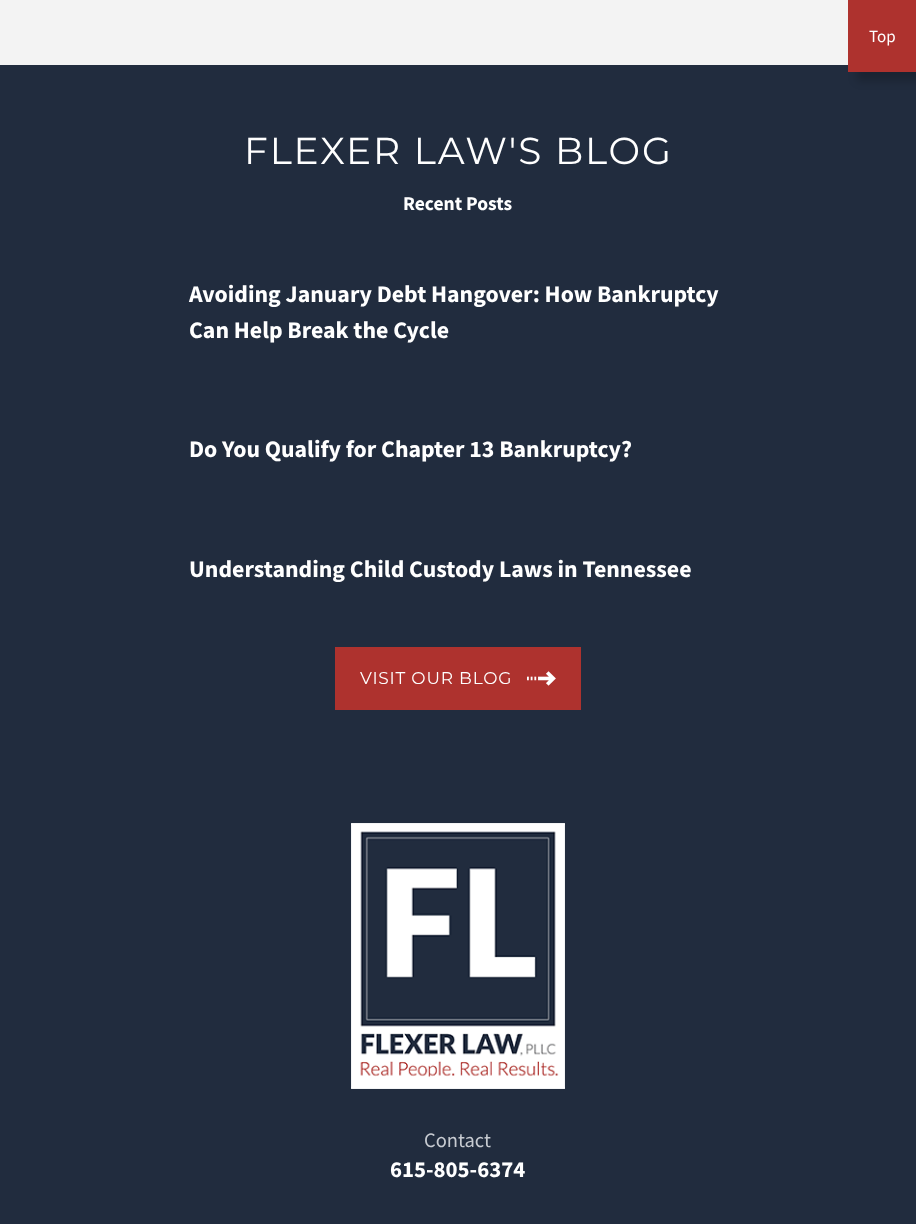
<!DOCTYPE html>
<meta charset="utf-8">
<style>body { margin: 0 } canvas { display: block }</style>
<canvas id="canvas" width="916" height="1224"></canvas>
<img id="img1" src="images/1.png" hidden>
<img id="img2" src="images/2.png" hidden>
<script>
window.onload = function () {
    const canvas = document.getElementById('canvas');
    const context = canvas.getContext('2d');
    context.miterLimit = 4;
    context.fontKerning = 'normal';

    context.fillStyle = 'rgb(33, 44, 62)';
    context.fillRect(0, 0, 916, 1224);
    context.fillStyle = 'rgb(243, 243, 243)';
    context.fillRect(0, 0, 848, 65);
    context.fillStyle = 'rgba(0, 0, 0, 0.2)';
    context.filter = 'blur(4.5px)';
    context.beginPath();
    context.rect(857, 9, 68, 72);
    context.fill();
    context.filter = 'none';
    context.fillStyle = 'rgb(174, 50, 46)';
    context.fillRect(848, 0, 68, 72);
    context.fillRect(335, 647, 246, 63);
    context.drawImage(document.getElementById('img1'), 527, 671, 29, 15);
    context.drawImage(document.getElementById('img2'), 351, 823, 214, 266);
    context.font = '17px Source Sans Pro';
    context.fillStyle = 'rgb(255, 255, 255)';
    context.fillText('Top', 869, 42);
    context.letterSpacing = '1.9px';
    context.font = '37.5px Montserrat';
    context.fillText('FLEXER LAW\'S BLOG', 244, 164);
    context.letterSpacing = '0px';
    context.font = 'bold 19.5px Source Sans Pro';
    context.fillText('Recent Posts', 403, 210);
    context.font = 'bold 23.8px Source Sans Pro';
    context.fillText('Avoiding January Debt Hangover: How Bankruptcy', 189, 302);
    context.fillText('Can Help Break the Cycle', 189, 338);
    context.fillText('Do You Qualify for Chapter 13 Bankruptcy?', 189, 457);
    context.fillText('Understanding Child Custody Laws in Tennessee', 189, 577);
    context.letterSpacing = '0.8px';
    context.font = '17px Montserrat';
    context.fillText('VISIT OUR BLOG', 360, 684);
    context.letterSpacing = '0px';
    context.font = '20.5px Source Sans Pro';
    context.fillStyle = 'rgb(199, 203, 209)';
    context.fillText('Contact', 424, 1147);
    context.font = 'bold 22.75px Source Sans Pro';
    context.fillStyle = 'rgb(255, 255, 255)';
    context.fillText('615-805-6374', 390, 1177);
};
</script>
